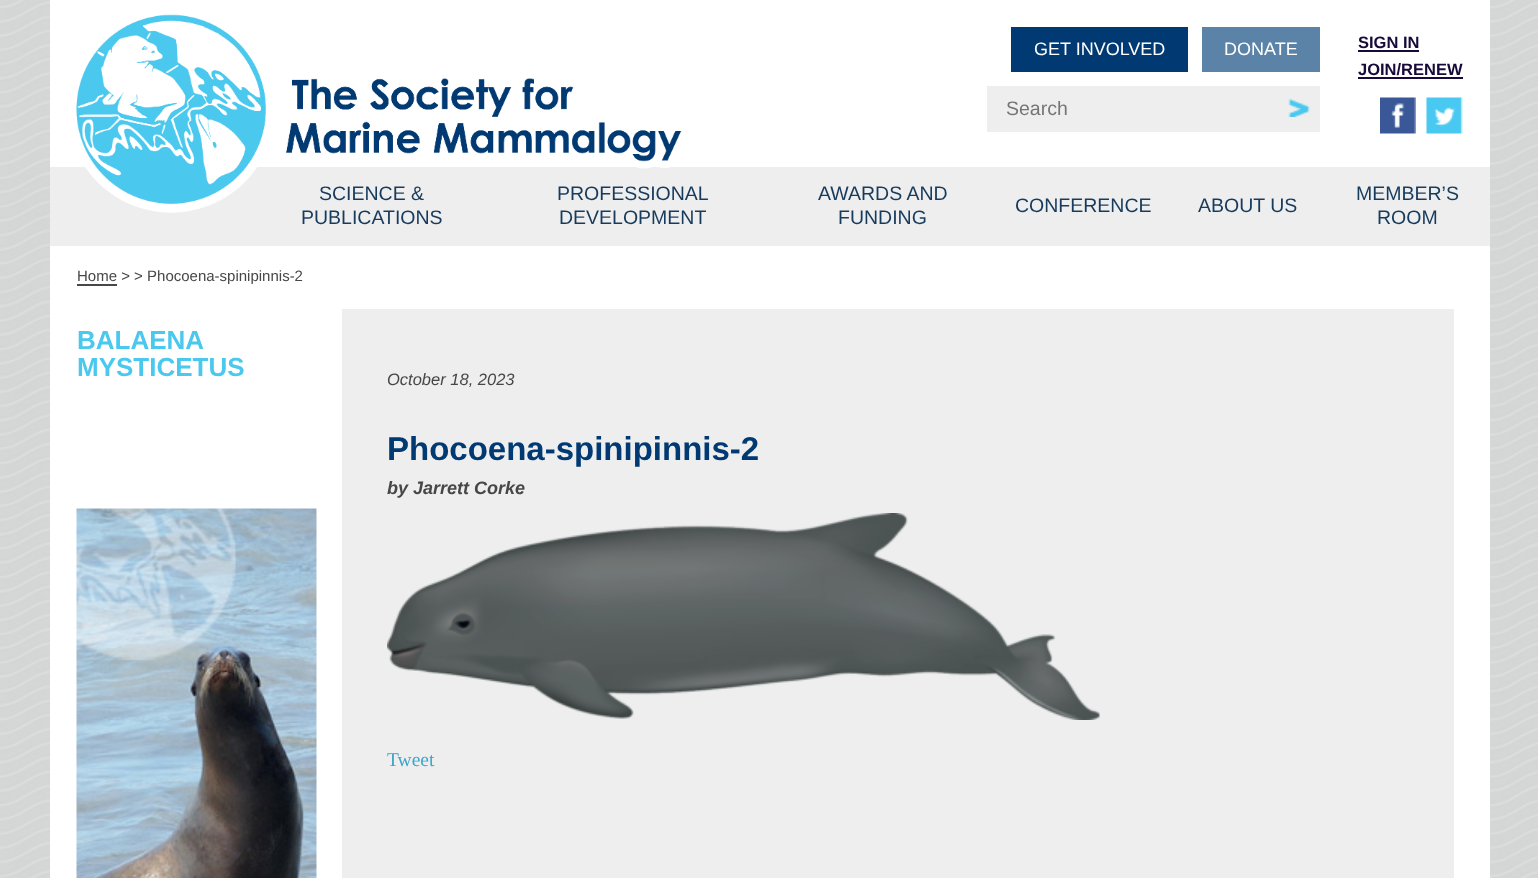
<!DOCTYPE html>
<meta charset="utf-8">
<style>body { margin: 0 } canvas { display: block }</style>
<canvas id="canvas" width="1538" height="878"></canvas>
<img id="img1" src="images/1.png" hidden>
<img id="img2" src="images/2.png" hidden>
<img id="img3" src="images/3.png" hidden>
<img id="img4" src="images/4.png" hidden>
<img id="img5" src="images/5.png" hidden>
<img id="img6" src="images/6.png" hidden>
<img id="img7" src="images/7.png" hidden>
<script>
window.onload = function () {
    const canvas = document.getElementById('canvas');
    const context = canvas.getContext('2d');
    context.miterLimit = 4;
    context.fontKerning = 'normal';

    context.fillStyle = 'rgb(255, 255, 255)';
    context.fillRect(0, 0, 1538, 878);
    context.drawImage(document.getElementById('img1'), 0, 0, 1538, 878);
    context.fillRect(50, 0, 1440, 878);
    context.fillStyle = 'rgb(238, 238, 238)';
    context.fillRect(50, 167, 1440, 79);
    context.drawImage(document.getElementById('img2'), 76, 14, 606, 199);
    context.fillStyle = 'rgb(1, 58, 115)';
    context.fillRect(1011, 27, 177, 45);
    context.fillStyle = 'rgb(90, 131, 167)';
    context.fillRect(1202, 27, 118, 45);
    context.fillStyle = 'rgb(238, 238, 238)';
    context.fillRect(987, 86, 333, 46);
    context.drawImage(document.getElementById('img3'), 1288, 98, 22, 19);
    context.fillStyle = 'rgb(23, 9, 58)';
    context.fillRect(1358, 50, 61, 2);
    context.fillRect(1358, 77, 105, 2);
    context.drawImage(document.getElementById('img4'), 1380, 97, 36, 37);
    context.drawImage(document.getElementById('img5'), 1426, 97, 37, 37);
    context.fillStyle = 'rgb(71, 71, 71)';
    context.fillRect(77, 284, 40, 2);
    context.drawImage(document.getElementById('img6'), 76, 508, 241, 370);
    context.fillStyle = 'rgb(238, 238, 238)';
    context.fillRect(342, 309, 1112, 569);
    context.drawImage(document.getElementById('img7'), 387, 513, 713, 207);
    context.font = '18px Liberation Sans';
    context.fillStyle = 'rgb(255, 255, 255)';
    context.fillText('GET INVOLVED', 1034, 55);
    context.fillText('DONATE', 1224, 55);
    context.font = '19.5px Liberation Sans';
    context.fillStyle = 'rgb(117, 117, 117)';
    context.fillText('Search', 1006, 115);
    context.font = 'bold 16.5px Liberation Sans';
    context.fillStyle = 'rgb(23, 9, 58)';
    context.fillText('SIGN IN', 1358, 48);
    context.fillText('JOIN/RENEW', 1358, 75);
    context.font = '19.5px Liberation Sans';
    context.fillStyle = 'rgb(23, 59, 93)';
    context.fillText('SCIENCE &', 319, 200);
    context.fillText('PUBLICATIONS', 301, 224);
    context.fillText('PROFESSIONAL', 557, 200);
    context.fillText('DEVELOPMENT', 559, 224);
    context.fillText('AWARDS AND', 818, 200);
    context.fillText('FUNDING', 838, 224);
    context.fillText('CONFERENCE', 1015, 212);
    context.fillText('ABOUT US', 1198, 212);
    context.fillText('MEMBER’S', 1356, 200);
    context.fillText('ROOM', 1377, 224);
    context.font = '15px Liberation Sans';
    context.fillStyle = 'rgb(71, 71, 71)';
    context.fillText('Home > > Phocoena-spinipinnis-2', 77, 281);
    context.font = 'bold 26px Liberation Sans';
    context.fillStyle = 'rgb(75, 200, 238)';
    context.fillText('BALAENA', 77, 349);
    context.fillText('MYSTICETUS', 77, 376);
    context.font = 'italic 16.5px Liberation Sans';
    context.fillStyle = 'rgb(71, 71, 71)';
    context.fillText('October 18, 2023', 387, 385);
    context.font = 'bold 33px Liberation Sans';
    context.fillStyle = 'rgb(1, 58, 115)';
    context.fillText('Phocoena-spinipinnis-2', 387, 460);
    context.font = 'italic bold 18px Liberation Sans';
    context.fillStyle = 'rgb(71, 71, 71)';
    context.fillText('by Jarrett Corke', 387, 494);
    context.font = '19.5px Liberation Serif';
    context.fillStyle = 'rgb(62, 165, 202)';
    context.fillText('Tweet', 387, 766);
};
</script>
